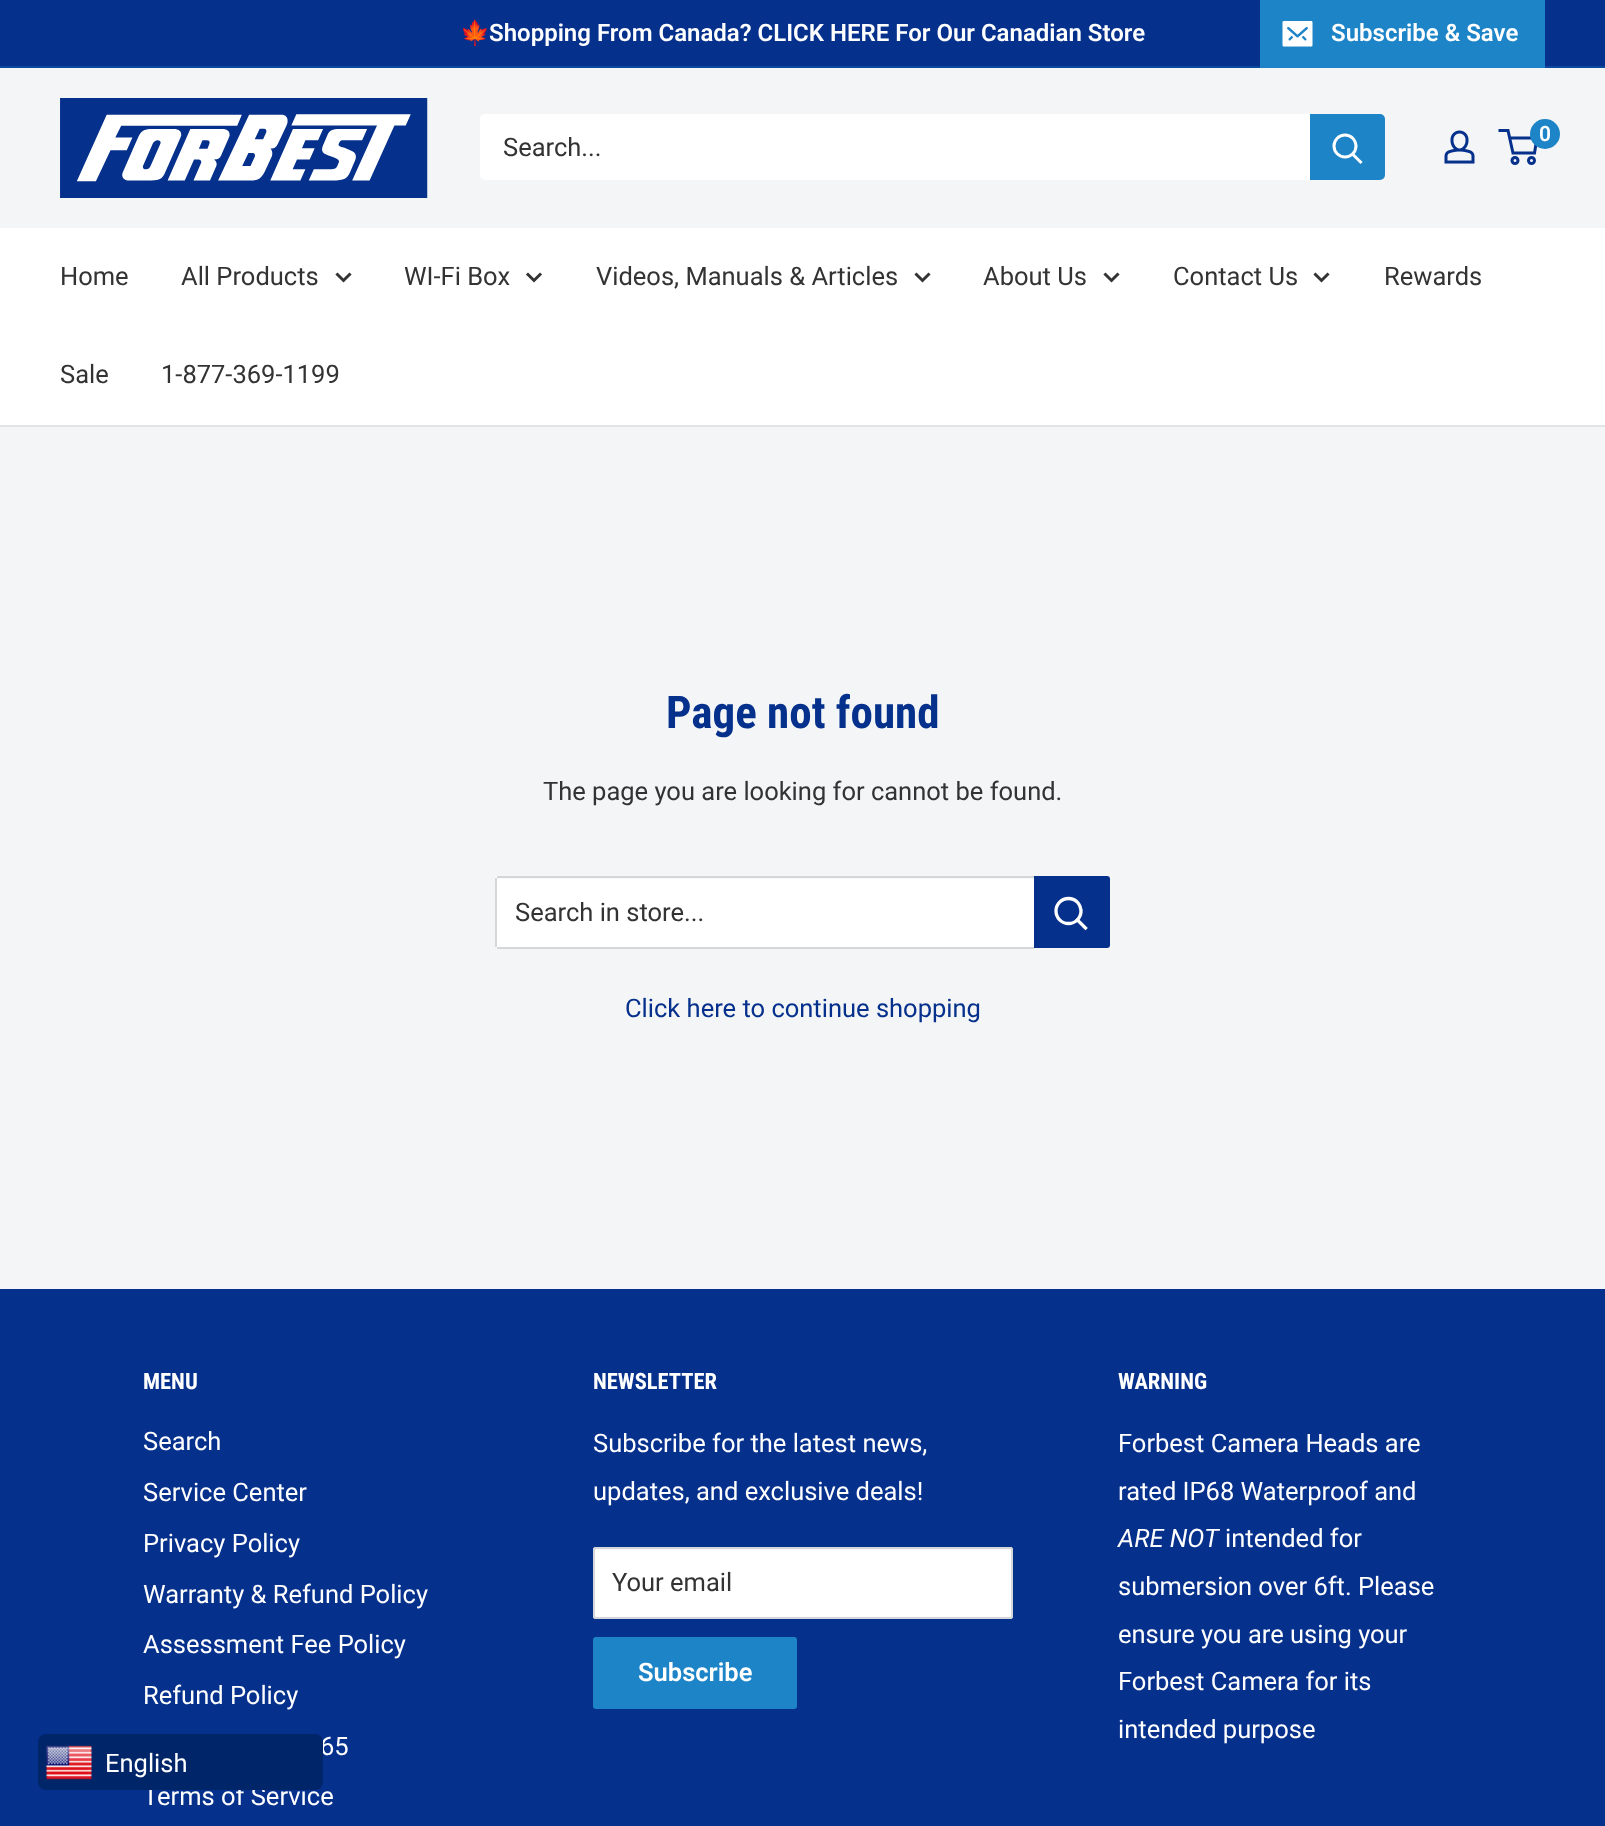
<!DOCTYPE html>
<meta charset="utf-8">
<style>body { margin: 0 } canvas { display: block }</style>
<canvas id="canvas" width="1605" height="1826"></canvas>
<img id="img1" src="images/1.png" hidden>
<img id="img2" src="images/2.png" hidden>
<img id="img3" src="images/3.png" hidden>
<img id="img4" src="images/4.png" hidden>
<script>
window.onload = function () {
    const canvas = document.getElementById('canvas');
    const context = canvas.getContext('2d');
    context.miterLimit = 4;
    context.fontKerning = 'normal';

    context.fillStyle = 'rgb(243, 245, 246)';
    context.fillRect(0, 0, 1605, 1826);
    context.fillStyle = 'rgb(5, 48, 140)';
    context.fillRect(0, 0, 1605, 66);
    context.fillStyle = 'rgb(12, 73, 158)';
    context.fillRect(0, 66, 1605, 2);
    context.fillStyle = 'rgb(29, 132, 199)';
    context.fillRect(1260, 0, 285, 68);
    context.drawImage(document.getElementById('img1'), 1282, 21, 31, 26);
    context.drawImage(document.getElementById('img2'), 60, 98, 368, 100);
    context.drawImage(document.getElementById('img3'), 1444, 130, 31, 34);
    context.beginPath();
    context.arc(1515, 160.5, 3, 0, 2 * Math.PI);
    context.strokeStyle = 'rgb(5, 48, 140)';
    context.lineWidth = 3;
    context.stroke();
    context.beginPath();
    context.arc(1531.5, 160.5, 3, 0, 2 * Math.PI);
    context.stroke();
    context.beginPath();
    context.moveTo(1509.5, 138);
    context.lineTo(1537, 138);
    context.lineTo(1534.5, 153);
    context.lineTo(1513, 153);
    context.lineTo(1508, 130.5);
    context.lineTo(1498.5, 130.5);
    context.stroke();
    context.beginPath();
    context.arc(1545, 134, 15, 0, 2 * Math.PI);
    context.fill();
    context.fillStyle = 'rgb(255, 255, 255)';
    context.beginPath();
    context.roundRect(480, 114, 905, 66, 5);
    context.fill();
    context.fillStyle = 'rgb(29, 132, 199)';
    context.beginPath();
    context.roundRect(1310, 114, 75, 66, [0, 5, 5, 0]);
    context.fill();
    context.beginPath();
    context.moveTo(1360.5, 162);
    context.lineTo(1353, 154.5);
    context.strokeStyle = 'rgb(255, 255, 255)';
    context.lineCap = 'square';
    context.stroke();
    context.beginPath();
    context.arc(1345, 146, 11, 0, 2 * Math.PI);
    context.stroke();
    context.fillStyle = 'rgb(255, 255, 255)';
    context.fillRect(0, 228, 1605, 197);
    context.fillStyle = 'rgb(225, 227, 228)';
    context.fillRect(0, 425, 1605, 2);
    context.beginPath();
    context.moveTo(349.5, 274.5);
    context.lineTo(343.5, 280.5);
    context.lineTo(337.5, 274.5);
    context.strokeStyle = 'rgb(51, 51, 51)';
    context.stroke();
    context.beginPath();
    context.moveTo(540, 274.5);
    context.lineTo(534, 280.5);
    context.lineTo(528, 274.5);
    context.stroke();
    context.beginPath();
    context.moveTo(928.5, 274.5);
    context.lineTo(922.5, 280.5);
    context.lineTo(916.5, 274.5);
    context.stroke();
    context.beginPath();
    context.moveTo(1117.5, 274.5);
    context.lineTo(1111.5, 280.5);
    context.lineTo(1105.5, 274.5);
    context.stroke();
    context.beginPath();
    context.moveTo(1327.5, 274.5);
    context.lineTo(1321.5, 280.5);
    context.lineTo(1315.5, 274.5);
    context.stroke();
    context.fillStyle = 'rgb(255, 255, 255)';
    context.beginPath();
    context.roundRect(495, 876, 539, 72, [3, 0, 0, 3]);
    context.fill();
    context.fillStyle = 'rgb(248, 248, 248)';
    context.beginPath();
    context.moveTo(498, 879);
    context.lineTo(1034, 879);
    context.lineTo(1034, 878);
    context.lineTo(498, 878);
    context.bezierCurveTo(498, 878, 497, 879, 497, 879);
    context.closePath();
    context.fill();
    context.fillStyle = 'rgb(212, 214, 216)';
    context.fillRect(497, 876, 537, 2);
    context.fillRect(497, 947, 537, 2);
    context.fillRect(495, 878, 2, 69);
    context.fillStyle = 'rgb(5, 48, 140)';
    context.beginPath();
    context.roundRect(1034, 876, 76, 72, [0, 3, 3, 0]);
    context.fill();
    context.beginPath();
    context.moveTo(1085.5, 928);
    context.lineTo(1077.5, 920);
    context.strokeStyle = 'rgb(255, 255, 255)';
    context.lineWidth = 3.3;
    context.stroke();
    context.beginPath();
    context.arc(1068.5, 911, 12.5, 0, 2 * Math.PI);
    context.stroke();
    context.fillRect(0, 1289, 1605, 537);
    context.fillStyle = 'rgb(255, 255, 255)';
    context.beginPath();
    context.roundRect(593, 1547, 420, 72, 3);
    context.fill();
    context.fillStyle = 'rgb(248, 248, 248)';
    context.beginPath();
    context.moveTo(596, 1550);
    context.lineTo(1010, 1550);
    context.lineTo(1011, 1551);
    context.bezierCurveTo(1011, 1550, 1011, 1548, 1010, 1548);
    context.lineTo(596, 1548);
    context.lineTo(594, 1549);
    context.lineTo(594, 1551);
    context.bezierCurveTo(594, 1550, 595, 1550, 596, 1550);
    context.closePath();
    context.fill();
    context.beginPath();
    context.roundRect(594, 1548, 418, 70, 2);
    context.strokeStyle = 'rgb(212, 214, 216)';
    context.lineWidth = 2;
    context.stroke();
    context.fillStyle = 'rgb(29, 132, 199)';
    context.beginPath();
    context.roundRect(593, 1637, 204, 72, 3);
    context.fill();
    context.font = 'bold 24px Noto Color Emoji';
    context.fillStyle = 'rgb(255, 255, 255)';
    context.fillText('🍁', 460, 41);
    context.font = '600 24px Roboto';
    context.fillText('Shopping From Canada? CLICK HERE For Our Canadian Store', 489, 41);
    context.fillText('Subscribe & Save', 1331, 41);
    context.font = '600 21px Roboto';
    context.fillText('0', 1539, 141);
    context.font = '25.5px Roboto';
    context.fillStyle = 'rgb(51, 51, 51)';
    context.fillText('Search...', 503, 156);
    context.fillText('Home', 60, 285);
    context.fillText('All Products', 181, 285);
    context.fillText('WI-Fi Box', 404, 285);
    context.fillText('Videos, Manuals & Articles', 596, 285);
    context.fillText('About Us', 983, 285);
    context.fillText('Contact Us', 1173, 285);
    context.fillText('Rewards', 1384, 285);
    context.fillText('Sale', 60, 383);
    context.fillText('1-877-369-1199', 161, 383);
    context.font = 'bold 45px Roboto Condensed';
    context.fillStyle = 'rgb(5, 48, 140)';
    context.fillText('Page not found', 666, 728);
    context.font = '25.5px Roboto';
    context.fillStyle = 'rgb(51, 51, 51)';
    context.fillText('The page you are looking for cannot be found.', 543, 800);
    context.fillText('Search in store...', 515, 921);
    context.fillStyle = 'rgb(5, 48, 140)';
    context.fillText('Click here to continue shopping', 625, 1017);
    context.font = 'bold 22.5px Roboto Condensed';
    context.fillStyle = 'rgb(255, 255, 255)';
    context.fillText('MENU', 143, 1389);
    context.font = '25.5px Roboto';
    context.fillText('Search', 143, 1450);
    context.fillText('Service Center', 143, 1501);
    context.fillText('Privacy Policy', 143, 1552);
    context.fillText('Warranty & Refund Policy', 143, 1603);
    context.fillText('Assessment Fee Policy', 143, 1653);
    context.fillText('Refund Policy', 143, 1704);
    context.fillText('65', 320, 1755);
    context.fillText('Terms of Service', 143, 1805);
    context.font = 'bold 22.5px Roboto Condensed';
    context.fillText('NEWSLETTER', 593, 1389);
    context.font = '25.5px Roboto';
    context.fillText('Subscribe for the latest news,', 593, 1452);
    context.fillText('updates, and exclusive deals!', 593, 1500);
    context.fillStyle = 'rgb(51, 51, 51)';
    context.fillText('Your email', 612, 1591);
    context.font = '600 25.5px Roboto';
    context.fillStyle = 'rgb(255, 255, 255)';
    context.fillText('Subscribe', 638, 1681);
    context.font = 'bold 22.5px Roboto Condensed';
    context.fillText('WARNING', 1118, 1389);
    context.font = '25.5px Roboto';
    context.fillText('Forbest Camera Heads are', 1118, 1452);
    context.fillText('rated IP68 Waterproof and', 1118, 1500);
    context.font = 'italic 25.5px Roboto';
    context.fillText('ARE NOT', 1118, 1547);
    context.font = '25.5px Roboto';
    context.fillText('intended for', 1225, 1547);
    context.fillText('submersion over 6ft. Please', 1118, 1595);
    context.fillText('ensure you are using your', 1118, 1643);
    context.fillText('Forbest Camera for its', 1118, 1690);
    context.fillText('intended purpose', 1118, 1738);
    context.fillStyle = 'rgb(0, 37, 105)';
    context.beginPath();
    context.roundRect(38, 1734, 285, 56, 8);
    context.fill();
    context.drawImage(document.getElementById('img4'), 46, 1745, 46, 35);
    context.fillStyle = 'rgb(255, 255, 255)';
    context.fillText('English', 105, 1772);
};
</script>
